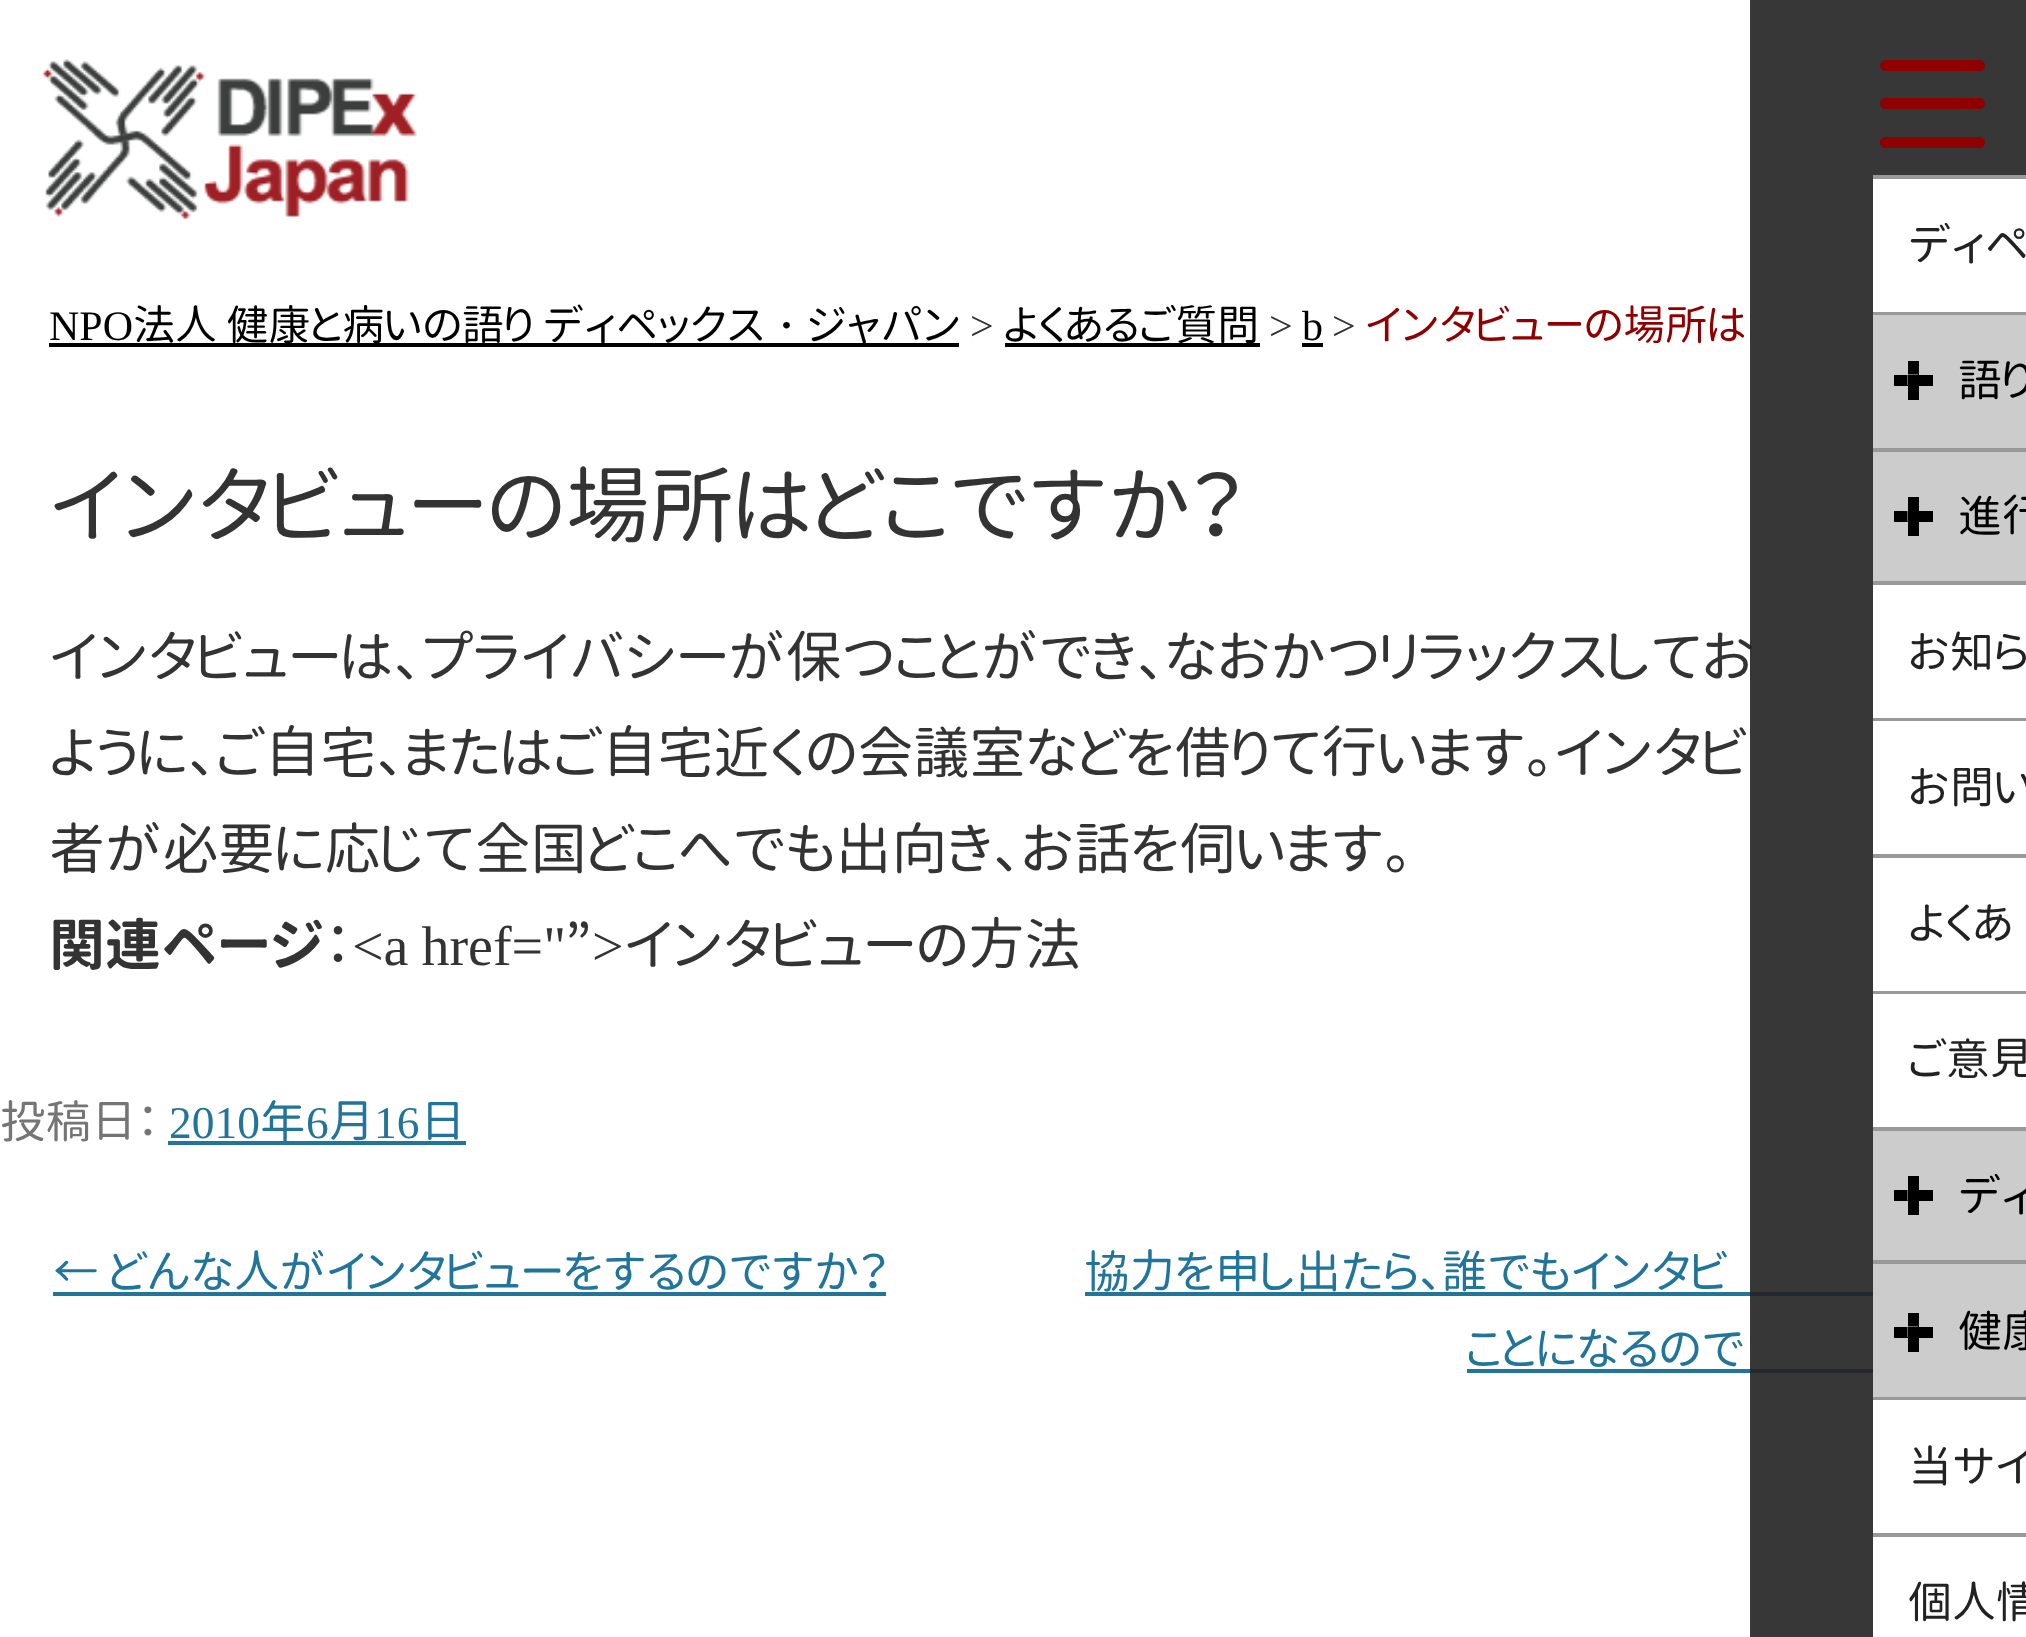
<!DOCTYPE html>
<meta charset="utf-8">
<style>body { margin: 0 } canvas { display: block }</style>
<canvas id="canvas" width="2026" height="1637"></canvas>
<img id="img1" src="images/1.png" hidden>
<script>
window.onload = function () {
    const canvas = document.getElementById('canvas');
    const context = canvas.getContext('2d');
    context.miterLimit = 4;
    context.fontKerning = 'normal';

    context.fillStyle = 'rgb(255, 255, 255)';
    context.fillRect(0, 0, 2026, 1637);
    context.fillStyle = 'rgb(0, 0, 0)';
    context.fillRect(49, 343, 910, 4);
    context.fillRect(1005, 343, 255, 4);
    context.fillRect(1302, 343, 21, 4);
    context.fillStyle = 'rgb(33, 117, 155)';
    context.fillRect(168, 1141, 298, 4);
    context.fillRect(53, 1292, 833, 4);
    context.fillRect(1085, 1292, 788, 4);
    context.fillRect(1467, 1369, 406, 4);
    context.drawImage(document.getElementById('img1'), 42, 59, 375, 162);
    context.font = '42px Liberation Serif';
    context.fillStyle = 'rgb(0, 0, 0)';
    context.fillText('NPO', 49, 340);
    context.font = '42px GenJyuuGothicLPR';
    context.fillText('法人 健康と病いの語り ディペックス', 133, 340);
    context.font = '500 42px WenQuanYi Zen Hei';
    context.fillText('・', 765, 340);
    context.font = '42px GenJyuuGothicLPR';
    context.fillText('ジャパン', 807, 340);
    context.font = '42px Liberation Serif';
    context.fillStyle = 'rgb(51, 51, 51)';
    context.fillText('>', 970, 340);
    context.font = '42px GenJyuuGothicLPR';
    context.fillStyle = 'rgb(0, 0, 0)';
    context.fillText('よくあるご質問', 1003, 340);
    context.font = '42px Liberation Serif';
    context.fillStyle = 'rgb(51, 51, 51)';
    context.fillText('>', 1269, 340);
    context.fillStyle = 'rgb(0, 0, 0)';
    context.fillText('b', 1302, 340);
    context.fillStyle = 'rgb(51, 51, 51)';
    context.fillText('>', 1332, 340);
    context.font = '42px GenJyuuGothicLPR';
    context.fillStyle = 'rgb(143, 0, 0)';
    context.fillText('インタビューの場所は', 1365, 340);
    context.font = '84px GenJyuuGothicLPR';
    context.fillStyle = 'rgb(51, 51, 51)';
    context.fillText('インタビューの場所はどこですか？', 49, 536);
    context.font = '56px GenJyuuGothicLPR';
    context.fillText('インタビューは、プライバシーが保つことができ、なおかつリラックスしてお', 49, 677);
    context.fillText('ように、ご自宅、またはご自宅近くの会議室などを借りて行います。インタビ', 49, 773);
    context.fillText('者が必要に応じて全国どこへでも出向き、お話を伺います。', 49, 869);
    context.font = 'bold 56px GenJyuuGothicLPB';
    context.fillText('関連ページ', 49, 965);
    context.font = '56px GenJyuuGothicLPR';
    context.fillText('：', 324, 965);
    context.wordSpacing = '-1px';
    context.font = '56px Liberation Serif';
    context.fillText('<a href="', 352, 965);
    context.wordSpacing = '0px';
    context.font = '56px GenJyuuGothicLPR';
    context.fillText('”', 565, 965);
    context.font = '56px Liberation Serif';
    context.fillText('>', 592, 965);
    context.font = '56px GenJyuuGothicLPR';
    context.fillText('インタビューの方法', 624, 965);
    context.font = '45.5px GenJyuuGothicLPR';
    context.fillStyle = 'rgb(117, 117, 117)';
    context.fillText('投稿日：', 0, 1138);
    context.font = '45.5px Liberation Serif';
    context.fillStyle = 'rgb(33, 117, 155)';
    context.fillText('2010', 169, 1138);
    context.font = '45.5px GenJyuuGothicLPR';
    context.fillText('年', 260, 1138);
    context.font = '45.5px Liberation Serif';
    context.fillText('6', 306, 1138);
    context.font = '45.5px GenJyuuGothicLPR';
    context.fillText('月', 329, 1138);
    context.font = '45.5px Liberation Serif';
    context.fillText('16', 374, 1138);
    context.font = '45.5px GenJyuuGothicLPR';
    context.fillText('日', 420, 1138);
    context.fillText('← どんな人がインタビューをするのですか？', 53, 1288);
    context.fillText('協力を申し出たら、誰でもインタビ', 1084, 1288);
    context.fillText('ことになるので', 1466, 1365);
    context.fillStyle = 'rgba(33, 33, 33, 0.9)';
    context.fillRect(1750, 0, 276, 1637);
    context.fillStyle = 'rgb(143, 0, 0)';
    context.beginPath();
    context.roundRect(1880, 137, 105, 11, 5.5);
    context.fill();
    context.beginPath();
    context.roundRect(1880, 98, 105, 11, 5.5);
    context.fill();
    context.beginPath();
    context.roundRect(1880, 60, 105, 11, 5.5);
    context.fill();
    context.fillStyle = 'rgb(153, 153, 153)';
    context.fillRect(1873, 175, 153, 4);
    context.fillStyle = 'rgb(255, 255, 255)';
    context.fillRect(1873, 179, 153, 133);
    context.font = '44px GenJyuuGothicLPR';
    context.fillStyle = 'rgb(34, 34, 34)';
    context.fillText('ディペ', 1908, 260);
    context.fillStyle = 'rgb(153, 153, 153)';
    context.fillRect(1873, 312, 153, 3);
    context.fillStyle = 'rgb(204, 204, 204)';
    context.fillRect(1873, 315, 153, 133);
    context.fillStyle = 'rgb(0, 0, 0)';
    context.fillRect(1894, 375, 7, 11);
    context.fillRect(1926, 375, 7, 11);
    context.beginPath();
    context.moveTo(1901, 375);
    context.lineTo(1901, 386);
    context.lineTo(1912, 386);
    context.lineTo(1912, 385);
    context.lineTo(1907.5, 385);
    context.lineTo(1907.5, 375);
    context.closePath();
    context.moveTo(1915, 385);
    context.lineTo(1915, 386);
    context.lineTo(1926, 386);
    context.lineTo(1926, 375);
    context.lineTo(1918, 375);
    context.lineTo(1918, 385);
    context.closePath();
    context.fill();
    context.fillRect(1908, 361, 11, 7);
    context.fillRect(1908, 393, 11, 7);
    context.beginPath();
    context.moveTo(1908, 368);
    context.lineTo(1908, 374.5);
    context.lineTo(1918, 374.5);
    context.lineTo(1918, 379);
    context.lineTo(1919, 379);
    context.lineTo(1919, 368);
    context.closePath();
    context.moveTo(1908, 385);
    context.lineTo(1908, 393);
    context.lineTo(1919, 393);
    context.lineTo(1919, 382);
    context.lineTo(1918, 382);
    context.lineTo(1918, 385);
    context.closePath();
    context.fill();
    context.fillRect(1908, 375, 10, 10);
    context.fillText('語り', 1958, 396);
    context.fillStyle = 'rgb(153, 153, 153)';
    context.fillRect(1873, 448, 153, 4);
    context.fillStyle = 'rgb(204, 204, 204)';
    context.fillRect(1873, 452, 153, 129);
    context.fillStyle = 'rgb(0, 0, 0)';
    context.fillRect(1894, 511, 7, 11);
    context.fillRect(1926, 511, 7, 11);
    context.beginPath();
    context.moveTo(1901, 511);
    context.lineTo(1901, 522);
    context.lineTo(1912, 522);
    context.lineTo(1912, 521.5);
    context.lineTo(1907.5, 521.5);
    context.lineTo(1907.5, 511);
    context.closePath();
    context.moveTo(1915, 521.5);
    context.lineTo(1915, 522);
    context.lineTo(1926, 522);
    context.lineTo(1926, 511);
    context.lineTo(1918, 511);
    context.lineTo(1918, 521.5);
    context.closePath();
    context.fill();
    context.fillRect(1908, 497, 11, 7);
    context.fillRect(1908, 529, 11, 7);
    context.beginPath();
    context.moveTo(1908, 504);
    context.lineTo(1908, 511);
    context.lineTo(1918, 511);
    context.lineTo(1918, 515);
    context.lineTo(1919, 515);
    context.lineTo(1919, 504);
    context.closePath();
    context.moveTo(1908, 521.5);
    context.lineTo(1908, 529);
    context.lineTo(1919, 529);
    context.lineTo(1919, 518);
    context.lineTo(1918, 518);
    context.lineTo(1918, 521.5);
    context.closePath();
    context.fill();
    context.fillRect(1908, 511, 10, 11);
    context.fillText('進行', 1958, 532);
    context.fillStyle = 'rgb(153, 153, 153)';
    context.fillRect(1873, 581, 153, 4);
    context.fillStyle = 'rgb(255, 255, 255)';
    context.fillRect(1873, 585, 153, 133);
    context.fillStyle = 'rgb(34, 34, 34)';
    context.fillText('お知ら', 1908, 668);
    context.fillStyle = 'rgb(153, 153, 153)';
    context.fillRect(1873, 718, 153, 3);
    context.fillStyle = 'rgb(255, 255, 255)';
    context.fillRect(1873, 721, 153, 133);
    context.fillStyle = 'rgb(34, 34, 34)';
    context.fillText('お問い', 1908, 803);
    context.fillStyle = 'rgb(153, 153, 153)';
    context.fillRect(1873, 854, 153, 4);
    context.fillStyle = 'rgb(255, 255, 255)';
    context.fillRect(1873, 858, 153, 133);
    context.fillStyle = 'rgb(34, 34, 34)';
    context.fillText('よくあ', 1908, 939);
    context.fillStyle = 'rgb(153, 153, 153)';
    context.fillRect(1873, 991, 153, 3);
    context.fillStyle = 'rgb(255, 255, 255)';
    context.fillRect(1873, 994, 153, 133);
    context.fillStyle = 'rgb(34, 34, 34)';
    context.fillText('ご意見', 1908, 1075);
    context.fillStyle = 'rgb(153, 153, 153)';
    context.fillRect(1873, 1127, 153, 4);
    context.fillStyle = 'rgb(204, 204, 204)';
    context.fillRect(1873, 1131, 153, 129);
    context.fillStyle = 'rgb(0, 0, 0)';
    context.fillRect(1894, 1190, 7, 11);
    context.fillRect(1926, 1190, 7, 11);
    context.beginPath();
    context.moveTo(1901, 1190);
    context.lineTo(1901, 1201);
    context.lineTo(1912, 1201);
    context.lineTo(1912, 1200.5);
    context.lineTo(1907.5, 1200.5);
    context.lineTo(1907.5, 1190);
    context.closePath();
    context.moveTo(1915, 1200.5);
    context.lineTo(1915, 1201);
    context.lineTo(1926, 1201);
    context.lineTo(1926, 1190);
    context.lineTo(1918, 1190);
    context.lineTo(1918, 1200.5);
    context.closePath();
    context.fill();
    context.fillRect(1908, 1176, 11, 7);
    context.fillRect(1908, 1208, 11, 7);
    context.beginPath();
    context.moveTo(1908, 1183);
    context.lineTo(1908, 1190);
    context.lineTo(1918, 1190);
    context.lineTo(1918, 1194);
    context.lineTo(1919, 1194);
    context.lineTo(1919, 1183);
    context.closePath();
    context.moveTo(1908, 1200.5);
    context.lineTo(1908, 1208);
    context.lineTo(1919, 1208);
    context.lineTo(1919, 1197);
    context.lineTo(1918, 1197);
    context.lineTo(1918, 1200.5);
    context.closePath();
    context.fill();
    context.fillRect(1908, 1190, 10, 11);
    context.fillText('ディ', 1958, 1211);
    context.fillStyle = 'rgb(153, 153, 153)';
    context.fillRect(1873, 1260, 153, 4);
    context.fillStyle = 'rgb(204, 204, 204)';
    context.fillRect(1873, 1264, 153, 133);
    context.fillStyle = 'rgb(0, 0, 0)';
    context.fillRect(1894, 1327, 7, 11);
    context.fillRect(1926, 1327, 7, 11);
    context.beginPath();
    context.moveTo(1901, 1327);
    context.lineTo(1901, 1338);
    context.lineTo(1912, 1338);
    context.lineTo(1912, 1337);
    context.lineTo(1907.5, 1337);
    context.lineTo(1907.5, 1327);
    context.closePath();
    context.moveTo(1915, 1337);
    context.lineTo(1915, 1338);
    context.lineTo(1926, 1338);
    context.lineTo(1926, 1327);
    context.lineTo(1918, 1327);
    context.lineTo(1918, 1337);
    context.closePath();
    context.fill();
    context.fillRect(1908, 1313, 11, 7);
    context.fillRect(1908, 1345, 11, 7);
    context.beginPath();
    context.moveTo(1908, 1320);
    context.lineTo(1908, 1326.5);
    context.lineTo(1918, 1326.5);
    context.lineTo(1918, 1331);
    context.lineTo(1919, 1331);
    context.lineTo(1919, 1320);
    context.closePath();
    context.moveTo(1908, 1337);
    context.lineTo(1908, 1345);
    context.lineTo(1919, 1345);
    context.lineTo(1919, 1334);
    context.lineTo(1918, 1334);
    context.lineTo(1918, 1337);
    context.closePath();
    context.fill();
    context.fillRect(1908, 1327, 10, 10);
    context.fillText('健康', 1958, 1347);
    context.fillStyle = 'rgb(153, 153, 153)';
    context.fillRect(1873, 1397, 153, 3);
    context.fillStyle = 'rgb(255, 255, 255)';
    context.fillRect(1873, 1400, 153, 133);
    context.fillStyle = 'rgb(34, 34, 34)';
    context.fillText('当サイ', 1908, 1482);
    context.fillStyle = 'rgb(153, 153, 153)';
    context.fillRect(1873, 1533, 153, 4);
    context.fillStyle = 'rgb(255, 255, 255)';
    context.fillRect(1873, 1537, 153, 100);
    context.fillStyle = 'rgb(34, 34, 34)';
    context.fillText('個人情', 1908, 1618);
};
</script>
